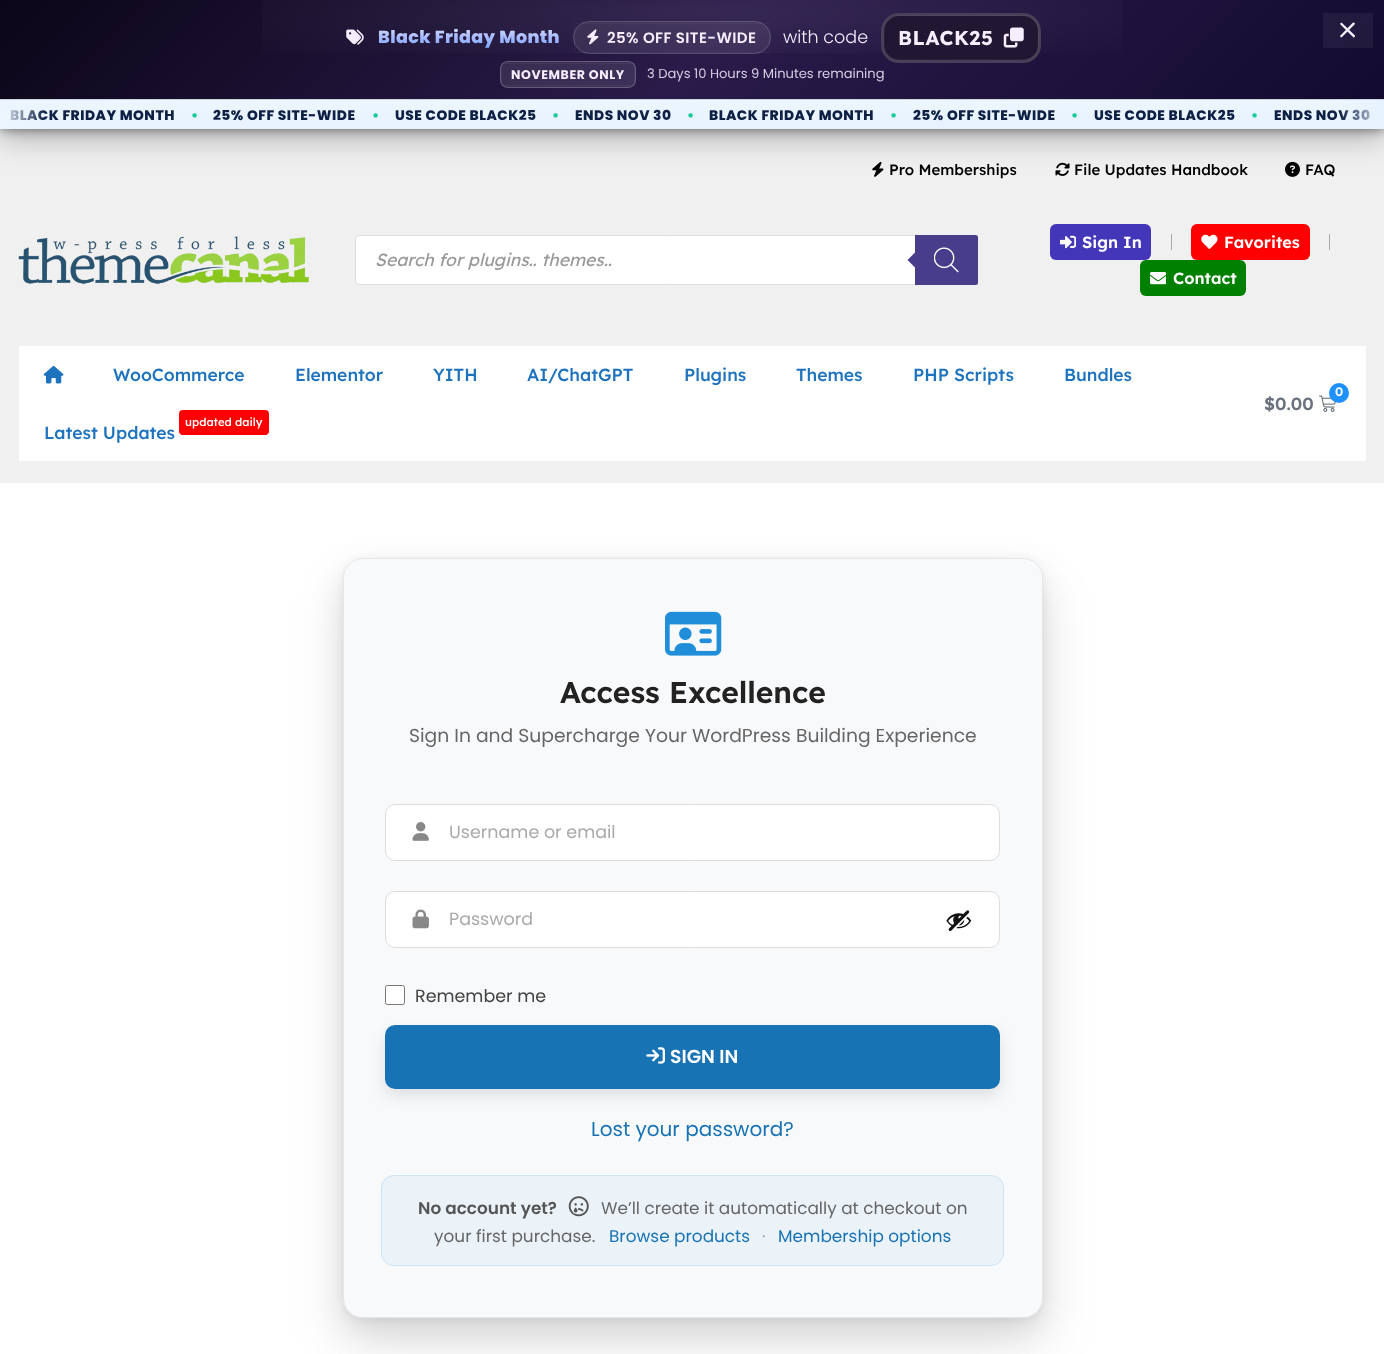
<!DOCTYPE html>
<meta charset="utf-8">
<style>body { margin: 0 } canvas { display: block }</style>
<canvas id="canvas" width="1384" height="1354"></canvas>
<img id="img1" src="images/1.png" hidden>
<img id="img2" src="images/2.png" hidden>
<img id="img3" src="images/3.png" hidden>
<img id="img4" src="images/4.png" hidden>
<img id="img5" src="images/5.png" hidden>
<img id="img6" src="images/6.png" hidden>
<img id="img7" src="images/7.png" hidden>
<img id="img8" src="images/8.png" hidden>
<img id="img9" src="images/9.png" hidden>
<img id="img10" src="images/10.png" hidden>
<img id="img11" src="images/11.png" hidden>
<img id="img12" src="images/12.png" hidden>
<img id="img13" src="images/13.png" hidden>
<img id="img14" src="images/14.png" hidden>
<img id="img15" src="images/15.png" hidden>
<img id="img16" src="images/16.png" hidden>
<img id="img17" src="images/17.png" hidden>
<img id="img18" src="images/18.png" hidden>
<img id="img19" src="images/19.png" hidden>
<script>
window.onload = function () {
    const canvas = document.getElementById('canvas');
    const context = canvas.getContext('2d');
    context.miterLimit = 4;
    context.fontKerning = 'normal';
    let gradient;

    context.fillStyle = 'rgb(240, 240, 240)';
    context.fillRect(0, 0, 1384, 1354);
    context.fillStyle = 'rgba(0, 0, 0, 0.5)';
    context.filter = 'blur(6px)';
    context.beginPath();
    context.rect(0, 0, 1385, 129);
    context.fill();
    context.filter = 'none';
    context.fillStyle = 'rgba(0, 0, 0, 0.25)';
    context.filter = 'blur(15px)';
    context.beginPath();
    context.rect(0, 10, 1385, 129);
    context.fill();
    context.filter = 'none';
    gradient = context.createLinearGradient(314, -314, 1071, 443);
    gradient.addColorStop(0, 'rgb(11, 6, 24)');
    gradient.addColorStop(0.5, 'rgb(42, 27, 74)');
    gradient.addColorStop(1, 'rgb(17, 10, 46)');
    context.fillStyle = gradient;
    context.fillRect(0, 0, 1384, 99);
    gradient = context.createRadialGradient(693, 139.39, 0, 693, 139.39, 1662);
    gradient.addColorStop(0, 'rgba(255, 255, 255, 0.06)');
    gradient.addColorStop(0.4, 'rgba(255, 255, 255, 0)');
    context.fillStyle = gradient;
    context.beginPath();
    context.rect(262, 0, 861, 53);
    context.save();
    context.clip();
    context.scale(1, 155 / 1662);
    context.fillRect(0, 0, 1384, 14519);
    context.restore();
    context.drawImage(document.getElementById('img1'), 346, 29, 18, 16);
    context.fillStyle = 'rgba(255, 255, 255, 0.08)';
    context.beginPath();
    context.roundRect(573, 21, 198, 33, 16.5);
    context.fill();
    context.strokeStyle = 'rgba(255, 255, 255, 0.04)';
    context.strokeRect(574.5, 23.5, 195, 29);
    context.beginPath();
    context.roundRect(573.5, 21.5, 197, 32, 16);
    context.strokeStyle = 'rgba(255, 255, 255, 0.15)';
    context.stroke();
    context.drawImage(document.getElementById('img2'), 587, 29, 12, 16);
    context.fillStyle = 'rgb(32, 23, 51)';
    context.beginPath();
    context.roundRect(881, 13, 160, 50, 18);
    context.fill();
    context.beginPath();
    context.roundRect(884.5, 15.5, 154, 44, 14.5);
    context.strokeStyle = 'rgb(41, 32, 59)';
    context.stroke();
    context.beginPath();
    context.roundRect(882.5, 14.5, 157, 47, 16.5);
    context.strokeStyle = 'rgba(255, 255, 255, 0.18)';
    context.lineWidth = 3;
    context.stroke();
    context.drawImage(document.getElementById('img3'), 1003, 27, 21, 21);
    context.fillStyle = 'rgba(255, 255, 255, 0.06)';
    context.fillRect(1323, 13, 50, 35);
    context.fillStyle = 'rgb(245, 238, 255)';
    context.beginPath();
    context.moveTo(1342, 23);
    context.lineTo(1355, 35.5);
    context.bezierCurveTo(1355, 36.5, 1354.5, 37.5, 1353.5, 37.5);
    context.lineTo(1340.5, 24.5);
    context.bezierCurveTo(1339.5, 23.5, 1341, 22, 1342, 23);
    context.closePath();
    context.fill();
    context.beginPath();
    context.moveTo(1340.5, 35.5);
    context.lineTo(1353, 22.5);
    context.bezierCurveTo(1354, 22.5, 1355, 23, 1355, 24);
    context.lineTo(1342, 37);
    context.bezierCurveTo(1341, 38, 1339.5, 36.5, 1340.5, 35.5);
    context.closePath();
    context.fill();
    context.fillStyle = 'rgba(255, 255, 255, 0.1)';
    context.beginPath();
    context.roundRect(500, 61, 136, 27, 8);
    context.fill();
    context.strokeStyle = 'rgba(255, 255, 255, 0.05)';
    context.lineWidth = 1;
    context.strokeRect(501.5, 63.5, 133, 22);
    context.beginPath();
    context.roundRect(500.5, 61.5, 135, 26, 7.5);
    context.strokeStyle = 'rgba(255, 255, 255, 0.22)';
    context.stroke();
    gradient = context.createLinearGradient(693, 100, 693, 129);
    gradient.addColorStop(0, 'rgb(237, 246, 255)');
    gradient.addColorStop(1, 'rgb(230, 242, 255)');
    context.fillStyle = gradient;
    context.fillRect(0, 100, 1384, 29);
    context.fillStyle = 'rgb(202, 213, 224)';
    context.fillRect(0, 99, 1384, 1);
    context.drawImage(document.getElementById('img4'), 872, 161, 12, 16);
    context.drawImage(document.getElementById('img5'), 1055, 162, 15, 14);
    context.drawImage(document.getElementById('img6'), 1285, 161, 15, 16);
    context.drawImage(document.getElementById('img7'), 18, 236, 291, 48);
    context.fillStyle = 'rgb(255, 255, 255)';
    context.beginPath();
    context.roundRect(355.5, 235.5, 622, 49, 3.5);
    context.fill();
    context.strokeStyle = 'rgb(221, 221, 221)';
    context.stroke();
    context.fillStyle = 'rgb(72, 61, 139)';
    context.beginPath();
    context.roundRect(915, 235, 63, 50, [0, 2.5, 2.5, 0]);
    context.fill();
    context.beginPath();
    context.moveTo(917.5, 250);
    context.lineTo(917.5, 270);
    context.lineTo(907.5, 260);
    context.closePath();
    context.fill();
    context.drawImage(document.getElementById('img8'), 934, 247, 25, 26);
    context.fillStyle = 'rgb(68, 54, 184)';
    context.beginPath();
    context.roundRect(1050, 224, 101, 36, 6);
    context.fill();
    context.drawImage(document.getElementById('img9'), 1060, 235, 16, 14);
    context.fillStyle = 'rgb(169, 169, 169)';
    context.fillRect(1171, 234, 1, 16);
    context.fillStyle = 'rgb(255, 0, 0)';
    context.beginPath();
    context.roundRect(1191, 224, 119, 36, 6);
    context.fill();
    context.drawImage(document.getElementById('img10'), 1201, 234, 17, 15);
    context.fillStyle = 'rgb(169, 169, 169)';
    context.fillRect(1329, 234, 1, 16);
    context.fillStyle = 'rgb(0, 128, 0)';
    context.beginPath();
    context.roundRect(1140, 260, 106, 36, 6);
    context.fill();
    context.drawImage(document.getElementById('img11'), 1150, 272, 16, 13);
    context.fillStyle = 'rgb(255, 255, 255)';
    context.fillRect(19, 346, 1347, 115);
    context.drawImage(document.getElementById('img12'), 43, 366, 21, 18);
    context.fillStyle = 'rgb(255, 0, 0)';
    context.beginPath();
    context.roundRect(179, 410, 90, 25, 4);
    context.fill();
    context.drawImage(document.getElementById('img13'), 1319, 395, 17, 17);
    context.fillStyle = 'rgb(30, 144, 255)';
    context.beginPath();
    context.arc(1339, 393, 10, 0, 2 * Math.PI);
    context.fill();
    context.fillStyle = 'rgb(255, 255, 255)';
    context.fillRect(0, 483, 1384, 871);
    context.fillStyle = 'rgba(0, 0, 0, 0.08)';
    context.filter = 'blur(30px)';
    context.beginPath();
    context.roundRect(343, 588, 700, 760, 20);
    context.fill();
    context.filter = 'none';
    context.fillStyle = 'rgba(0, 0, 0, 0.1)';
    context.filter = 'blur(16px)';
    context.beginPath();
    context.roundRect(343, 573, 700, 760, 20);
    context.fill();
    context.filter = 'none';
    context.fillStyle = 'rgba(0, 0, 0, 0.06)';
    context.filter = 'blur(4px)';
    context.beginPath();
    context.roundRect(343, 560, 700, 760, 20);
    context.fill();
    context.filter = 'none';
    context.fillStyle = 'rgb(248, 249, 251)';
    context.beginPath();
    context.roundRect(343, 558, 700, 760, 20);
    context.fill();
    context.beginPath();
    context.roundRect(343.5, 558.5, 699, 759, 19.5);
    context.strokeStyle = 'rgba(17, 24, 39, 0.08)';
    context.stroke();
    context.drawImage(document.getElementById('img14'), 665, 611, 57, 45);
    context.fillStyle = 'rgb(255, 255, 255)';
    context.beginPath();
    context.roundRect(385.5, 804.5, 614, 56, 9.5);
    context.fill();
    context.strokeStyle = 'rgb(221, 221, 221)';
    context.stroke();
    context.drawImage(document.getElementById('img15'), 412, 822, 17, 19);
    context.beginPath();
    context.roundRect(385.5, 891.5, 614, 56, 9.5);
    context.fill();
    context.stroke();
    context.drawImage(document.getElementById('img16'), 412, 909, 17, 20);
    context.drawImage(document.getElementById('img17'), 946, 910, 26, 21);
    context.beginPath();
    context.roundRect(385.5, 985.5, 19, 19, 2);
    context.fill();
    context.strokeStyle = 'rgb(118, 118, 118)';
    context.stroke();
    context.fillStyle = 'rgba(0, 0, 0, 0.1)';
    context.filter = 'blur(7.5px)';
    context.beginPath();
    context.roundRect(385, 1033, 615, 63, 10);
    context.fill();
    context.filter = 'none';
    context.fillStyle = 'rgb(24, 115, 180)';
    context.beginPath();
    context.roundRect(385, 1025, 615, 64, 10);
    context.fill();
    context.drawImage(document.getElementById('img18'), 646, 1047, 19, 17);
    context.fillStyle = 'rgb(235, 243, 249)';
    context.beginPath();
    context.roundRect(381, 1175, 623, 91, 13);
    context.fill();
    context.beginPath();
    context.roundRect(381.5, 1175.5, 622, 90, 12.5);
    context.strokeStyle = 'rgba(32, 142, 217, 0.15)';
    context.stroke();
    context.drawImage(document.getElementById('img19'), 568, 1196, 21, 21);
    context.letterSpacing = '0.4px';
    context.font = '800 17.5px Poppins';
    gradient = context.createLinearGradient(469, 23, 469, 52);
    gradient.addColorStop(0, 'rgb(234, 242, 255)');
    gradient.addColorStop(0.48, 'rgb(169, 187, 255)');
    gradient.addColorStop(1, 'rgb(111, 161, 255)');
    context.fillStyle = gradient;
    context.fillText('Black Friday Month', 378, 43);
    context.font = '600 15px Poppins';
    context.fillStyle = 'rgb(245, 238, 255)';
    context.fillText('25% OFF SITE-WIDE', 607, 43);
    context.letterSpacing = '0px';
    context.font = '300 17.5px Poppins';
    context.fillText('with code', 783, 43);
    context.letterSpacing = '0.6px';
    context.font = 'bold 20px Lexend Deca';
    context.fillText('BLACK25', 898, 45);
    context.font = 'bold 12.5px Poppins';
    context.fillText('NOVEMBER ONLY', 511, 79);
    context.letterSpacing = '0px';
    context.font = '13.1px Poppins';
    context.fillStyle = 'rgb(214, 206, 227)';
    context.fillText('3 Days 10 Hours 9 Minutes remaining', 647, 78);
    context.letterSpacing = '0.5px';
    context.font = '800 13.75px Poppins';
    context.fillStyle = 'rgb(14, 32, 68)';
    context.fillText('BLACK FRIDAY MONTH', 10, 120);
    context.fillStyle = 'rgb(23, 203, 155)';
    context.fillText('•', 191, 120);
    context.fillStyle = 'rgb(14, 32, 68)';
    context.fillText('25% OFF SITE-WIDE', 213, 120);
    context.fillStyle = 'rgb(23, 203, 155)';
    context.fillText('•', 372, 120);
    context.fillStyle = 'rgb(14, 32, 68)';
    context.fillText('USE CODE BLACK25', 395, 120);
    context.fillStyle = 'rgb(23, 203, 155)';
    context.fillText('•', 552, 120);
    context.fillStyle = 'rgb(14, 32, 68)';
    context.fillText('ENDS NOV 30', 575, 120);
    context.fillStyle = 'rgb(23, 203, 155)';
    context.fillText('•', 687, 120);
    context.fillStyle = 'rgb(14, 32, 68)';
    context.fillText('BLACK FRIDAY MONTH', 709, 120);
    context.fillStyle = 'rgb(23, 203, 155)';
    context.fillText('•', 890, 120);
    context.fillStyle = 'rgb(14, 32, 68)';
    context.fillText('25% OFF SITE-WIDE', 913, 120);
    context.fillStyle = 'rgb(23, 203, 155)';
    context.fillText('•', 1071, 120);
    context.fillStyle = 'rgb(14, 32, 68)';
    context.fillText('USE CODE BLACK25', 1094, 120);
    context.fillStyle = 'rgb(23, 203, 155)';
    context.fillText('•', 1251, 120);
    context.fillStyle = 'rgb(14, 32, 68)';
    context.fillText('ENDS NOV 30', 1274, 120);
    gradient = context.createLinearGradient(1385, 114, 1340, 114);
    gradient.addColorStop(0, 'rgb(230, 242, 255)');
    gradient.addColorStop(1, 'rgba(230, 242, 255, 0)');
    context.fillStyle = gradient;
    context.fillRect(1341, 100, 43, 21);
    gradient = context.createLinearGradient(0, 114, 45, 114);
    gradient.addColorStop(0, 'rgb(237, 246, 255)');
    gradient.addColorStop(1, 'rgba(237, 246, 255, 0)');
    context.fillStyle = gradient;
    context.fillRect(0, 110, 44, 19);
    context.letterSpacing = '0px';
    context.font = '500 15px Lexend Deca';
    context.fillStyle = 'rgb(0, 0, 0)';
    context.fillText('Pro Memberships', 889, 175);
    context.fillText('File Updates Handbook', 1074, 175);
    context.fillText('FAQ', 1305, 175);
    context.font = 'italic 17.5px Lexend Deca';
    context.fillStyle = 'rgb(153, 153, 153)';
    context.fillText('Search for plugins.. themes..', 375, 266);
    context.font = '600 16.25px Lexend Deca';
    context.fillStyle = 'rgb(255, 255, 255)';
    context.fillText('Sign In', 1082, 248);
    context.fillText('Favorites', 1224, 248);
    context.fillText('Contact', 1173, 284);
    context.font = '500 17.5px Lexend Deca';
    context.fillStyle = 'rgb(30, 115, 190)';
    context.fillText('WooCommerce', 113, 381);
    context.fillText('Elementor', 295, 381);
    context.fillText('YITH', 433, 381);
    context.fillText('AI/ChatGPT', 527, 381);
    context.fillText('Plugins', 684, 381);
    context.fillText('Themes', 796, 381);
    context.fillText('PHP Scripts', 913, 381);
    context.fillText('Bundles', 1064, 381);
    context.font = '500 11.25px Lexend Deca';
    context.fillStyle = 'rgb(255, 255, 255)';
    context.fillText('updated daily', 185, 426);
    context.font = '500 17.5px Lexend Deca';
    context.fillStyle = 'rgb(30, 115, 190)';
    context.fillText('Latest Updates', 44, 439);
    context.font = '600 12.5px Lexend Deca';
    context.fillStyle = 'rgb(255, 255, 255)';
    context.fillText('0', 1335, 396);
    context.font = '600 17.5px Lexend Deca';
    context.fillStyle = 'rgb(105, 114, 125)';
    context.fillText('$0.00', 1264, 410);
    context.font = '600 30px Lexend Deca';
    context.fillStyle = 'rgb(34, 34, 34)';
    context.fillText('Access Excellence', 560, 703);
    context.font = '18.75px Poppins';
    context.fillStyle = 'rgb(102, 102, 102)';
    context.fillText('Sign In and Supercharge Your WordPress Building Experience', 409, 742);
    context.font = '17.5px Poppins';
    context.fillStyle = 'rgb(170, 170, 170)';
    context.fillText('Username or email', 449, 838);
    context.fillText('Password', 449, 925);
    context.fillStyle = 'rgb(68, 68, 68)';
    context.fillText('Remember me', 415, 1002);
    context.font = '600 18.75px Poppins';
    context.fillStyle = 'rgb(255, 255, 255)';
    context.fillText('SIGN IN', 670, 1063);
    context.font = '20px Poppins';
    context.fillStyle = 'rgb(24, 115, 180)';
    context.fillText('Lost your password?', 591, 1136);
    context.font = '600 16.9px Poppins';
    context.fillStyle = 'rgb(85, 85, 85)';
    context.fillText('No account yet?', 418, 1214);
    context.font = '16.9px Poppins';
    context.fillStyle = 'rgb(102, 102, 102)';
    context.fillText('We’ll create it automatically at checkout on', 601, 1214);
    context.fillText('your first purchase.', 434, 1242);
    context.fillStyle = 'rgb(24, 115, 180)';
    context.fillText('Browse products', 609, 1242);
    context.fillStyle = 'rgb(154, 163, 173)';
    context.fillText('·', 762, 1242);
    context.fillStyle = 'rgb(24, 115, 180)';
    context.fillText('Membership options', 778, 1242);
};
</script>
